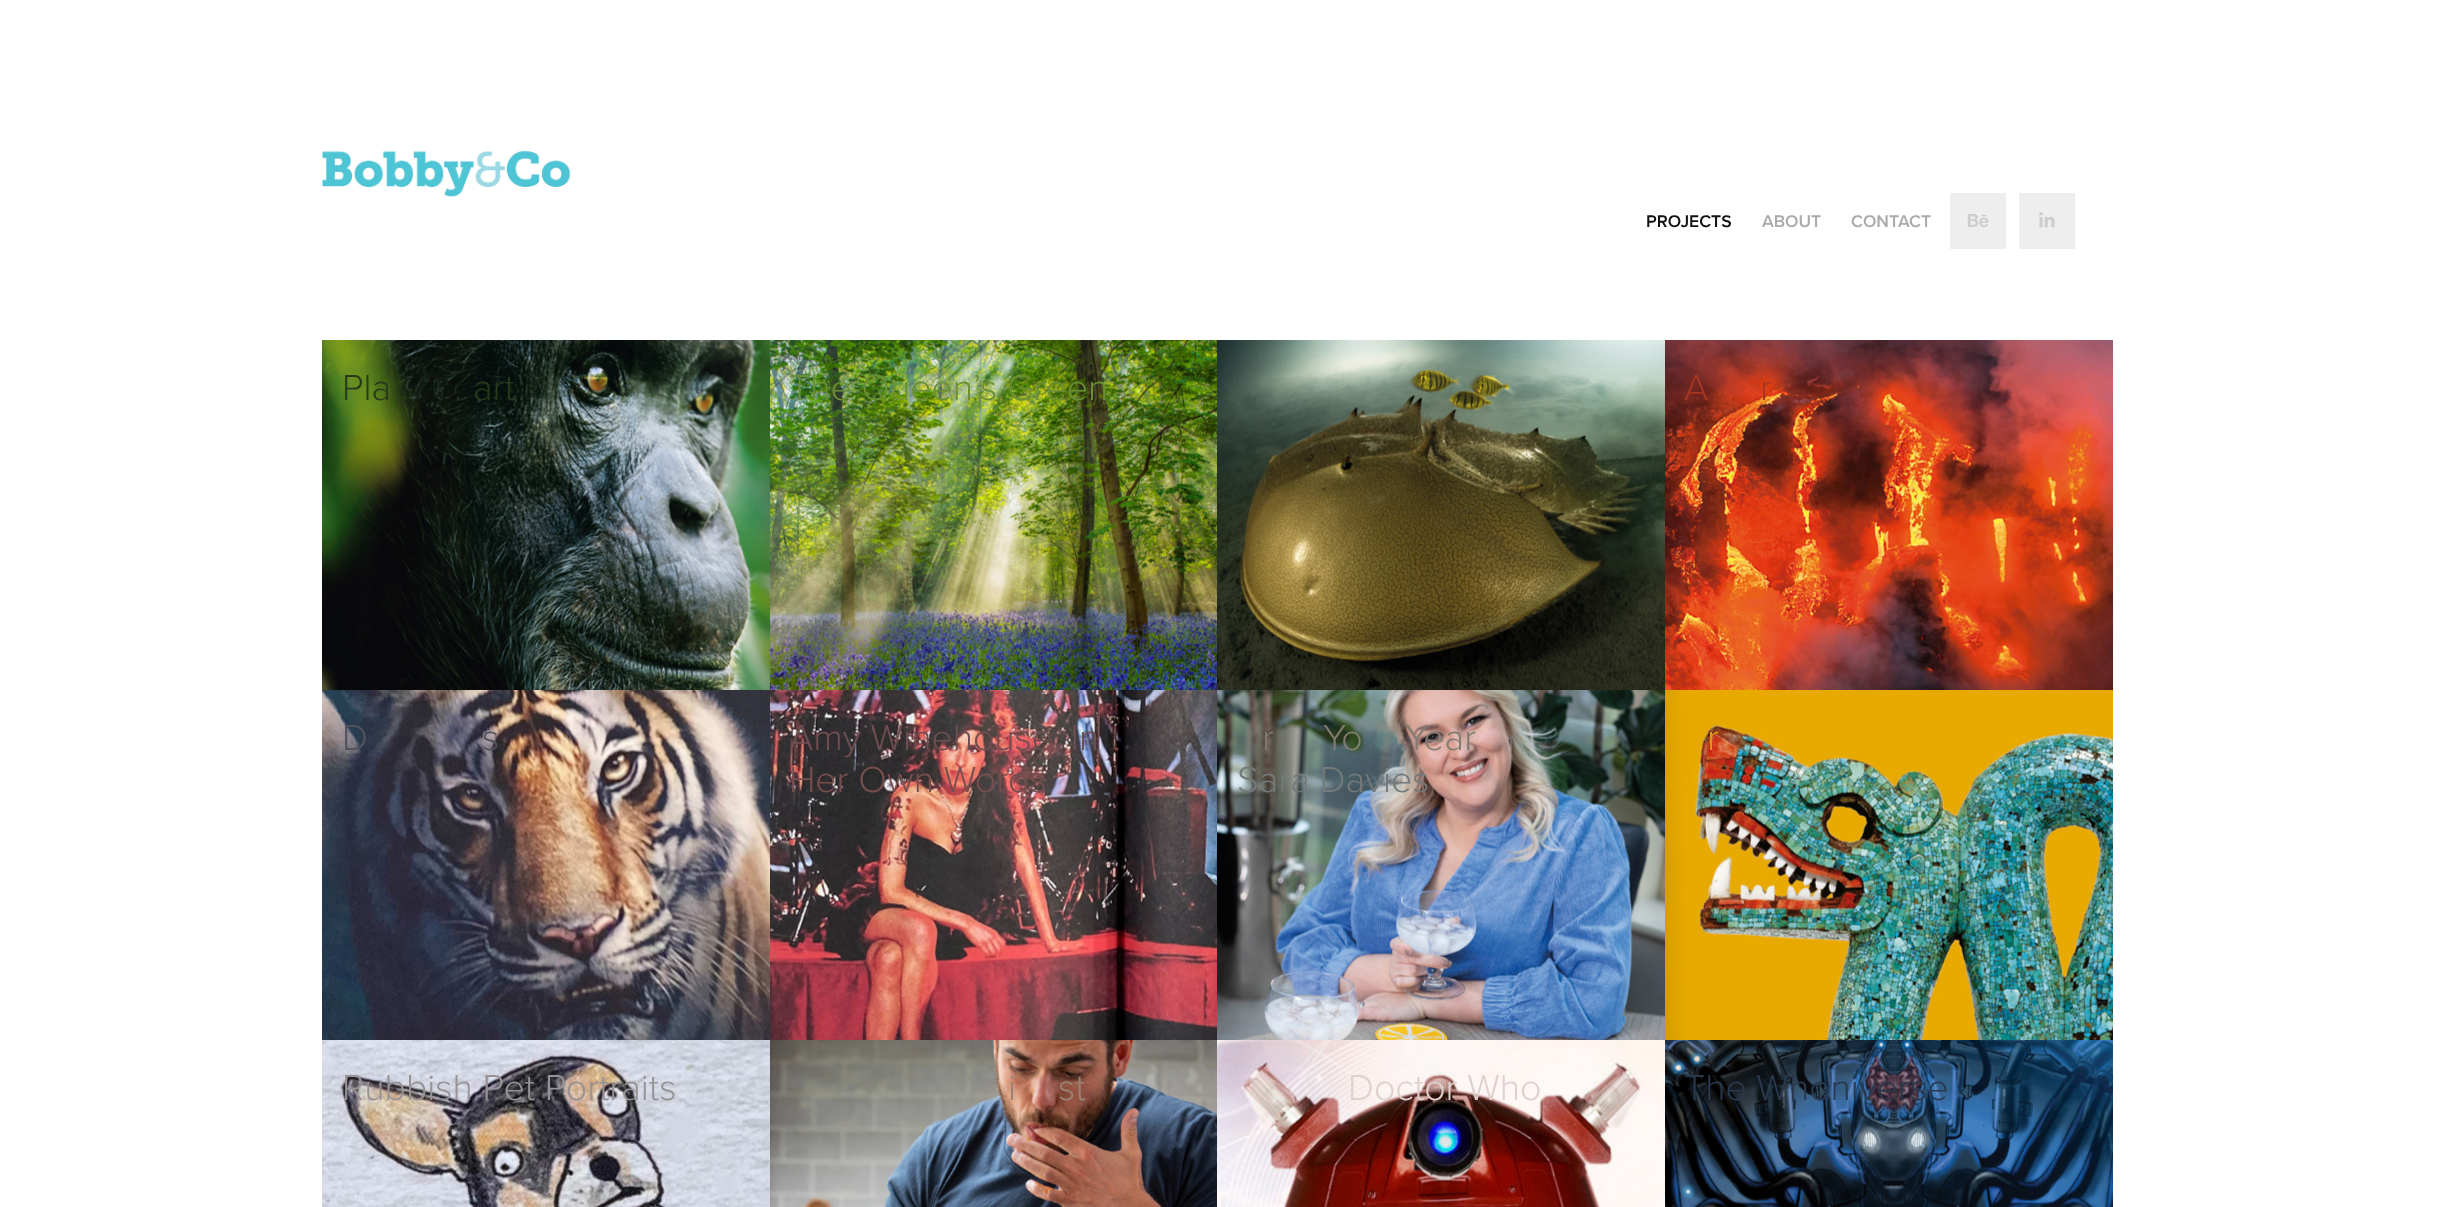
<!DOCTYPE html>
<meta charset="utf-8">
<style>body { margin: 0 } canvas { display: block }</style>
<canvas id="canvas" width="2444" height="1207"></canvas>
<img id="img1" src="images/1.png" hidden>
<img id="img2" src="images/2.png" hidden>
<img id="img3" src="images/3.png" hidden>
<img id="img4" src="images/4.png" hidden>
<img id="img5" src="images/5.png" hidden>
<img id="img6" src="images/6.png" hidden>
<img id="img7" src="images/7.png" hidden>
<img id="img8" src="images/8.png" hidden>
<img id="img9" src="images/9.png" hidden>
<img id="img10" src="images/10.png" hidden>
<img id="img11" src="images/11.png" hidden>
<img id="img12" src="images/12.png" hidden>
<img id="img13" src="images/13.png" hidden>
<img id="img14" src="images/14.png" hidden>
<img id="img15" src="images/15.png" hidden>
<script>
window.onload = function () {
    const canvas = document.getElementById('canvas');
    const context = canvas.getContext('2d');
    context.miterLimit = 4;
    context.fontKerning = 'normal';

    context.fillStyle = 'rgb(255, 255, 255)';
    context.fillRect(0, 0, 2444, 1207);
    context.drawImage(document.getElementById('img1'), 322, 151, 249, 46);
    context.fillStyle = 'rgb(238, 238, 238)';
    context.fillRect(1950, 193, 56, 56);
    context.drawImage(document.getElementById('img2'), 1967, 214, 22, 14);
    context.fillRect(2019, 193, 56, 56);
    context.drawImage(document.getElementById('img3'), 2039, 212, 16, 16);
    context.drawImage(document.getElementById('img4'), 322, 340, 448, 350);
    context.drawImage(document.getElementById('img5'), 770, 340, 447, 350);
    context.drawImage(document.getElementById('img6'), 1217, 340, 448, 350);
    context.drawImage(document.getElementById('img7'), 1665, 340, 448, 350);
    context.drawImage(document.getElementById('img8'), 322, 690, 448, 350);
    context.drawImage(document.getElementById('img9'), 770, 690, 447, 350);
    context.drawImage(document.getElementById('img10'), 1217, 690, 448, 350);
    context.drawImage(document.getElementById('img11'), 1665, 690, 448, 350);
    context.drawImage(document.getElementById('img12'), 322, 1040, 448, 167);
    context.drawImage(document.getElementById('img13'), 770, 1040, 447, 167);
    context.drawImage(document.getElementById('img14'), 1217, 1040, 448, 167);
    context.drawImage(document.getElementById('img15'), 1665, 1040, 448, 167);
    context.font = '600 17.5px Proxima Nova';
    context.fillStyle = 'rgb(17, 17, 17)';
    context.fillText('PROJECTS', 1646, 227);
    context.fillStyle = 'rgb(170, 170, 170)';
    context.fillText('ABOUT', 1762, 227);
    context.fillText('CONTACT', 1851, 227);
    context.font = '300 37.5px Proxima Nova';
    context.fillStyle = 'rgb(40, 58, 28)';
    context.fillText('Pla', 342, 400);
    context.fillText('art', 473, 400);
    context.fillStyle = 'rgb(108, 142, 53)';
    context.fillText('The Queen’s Green', 789, 400);
    context.fillStyle = 'rgb(165, 55, 35)';
    context.fillText('A', 1684, 400);
    context.fillText('r', 1760, 400);
    context.fillStyle = 'rgb(82, 82, 95)';
    context.fillText('D', 342, 750);
    context.fillText('s', 482, 750);
    context.fillStyle = 'rgb(110, 78, 80)';
    context.fillText('Amy Winehouse. In', 789, 750);
    context.fillStyle = 'rgb(119, 79, 78)';
    context.fillText('Her Own Words', 789, 792);
    context.fillStyle = 'rgb(129, 123, 114)';
    context.fillText('r', 1262, 750);
    context.fillText('Yo', 1323, 750);
    context.fillText('Year', 1405, 750);
    context.fillStyle = 'rgb(115, 122, 121)';
    context.fillText('Sara Davies', 1237, 792);
    context.fillStyle = 'rgb(220, 158, 11)';
    context.fillText('r', 1707, 750);
    context.fillStyle = 'rgb(151, 146, 148)';
    context.fillText('Rubbish Pet Portraits', 342, 1100);
    context.fillStyle = 'rgb(152, 131, 119)';
    context.fillText('i', 1008, 1100);
    context.fillText('st', 1058, 1100);
    context.fillStyle = 'rgb(223, 208, 206)';
    context.fillText('Doctor Who', 1348, 1100);
    context.fillStyle = 'rgb(42, 56, 77)';
    context.fillText('The Whoniverse', 1684, 1100);
};
</script>
